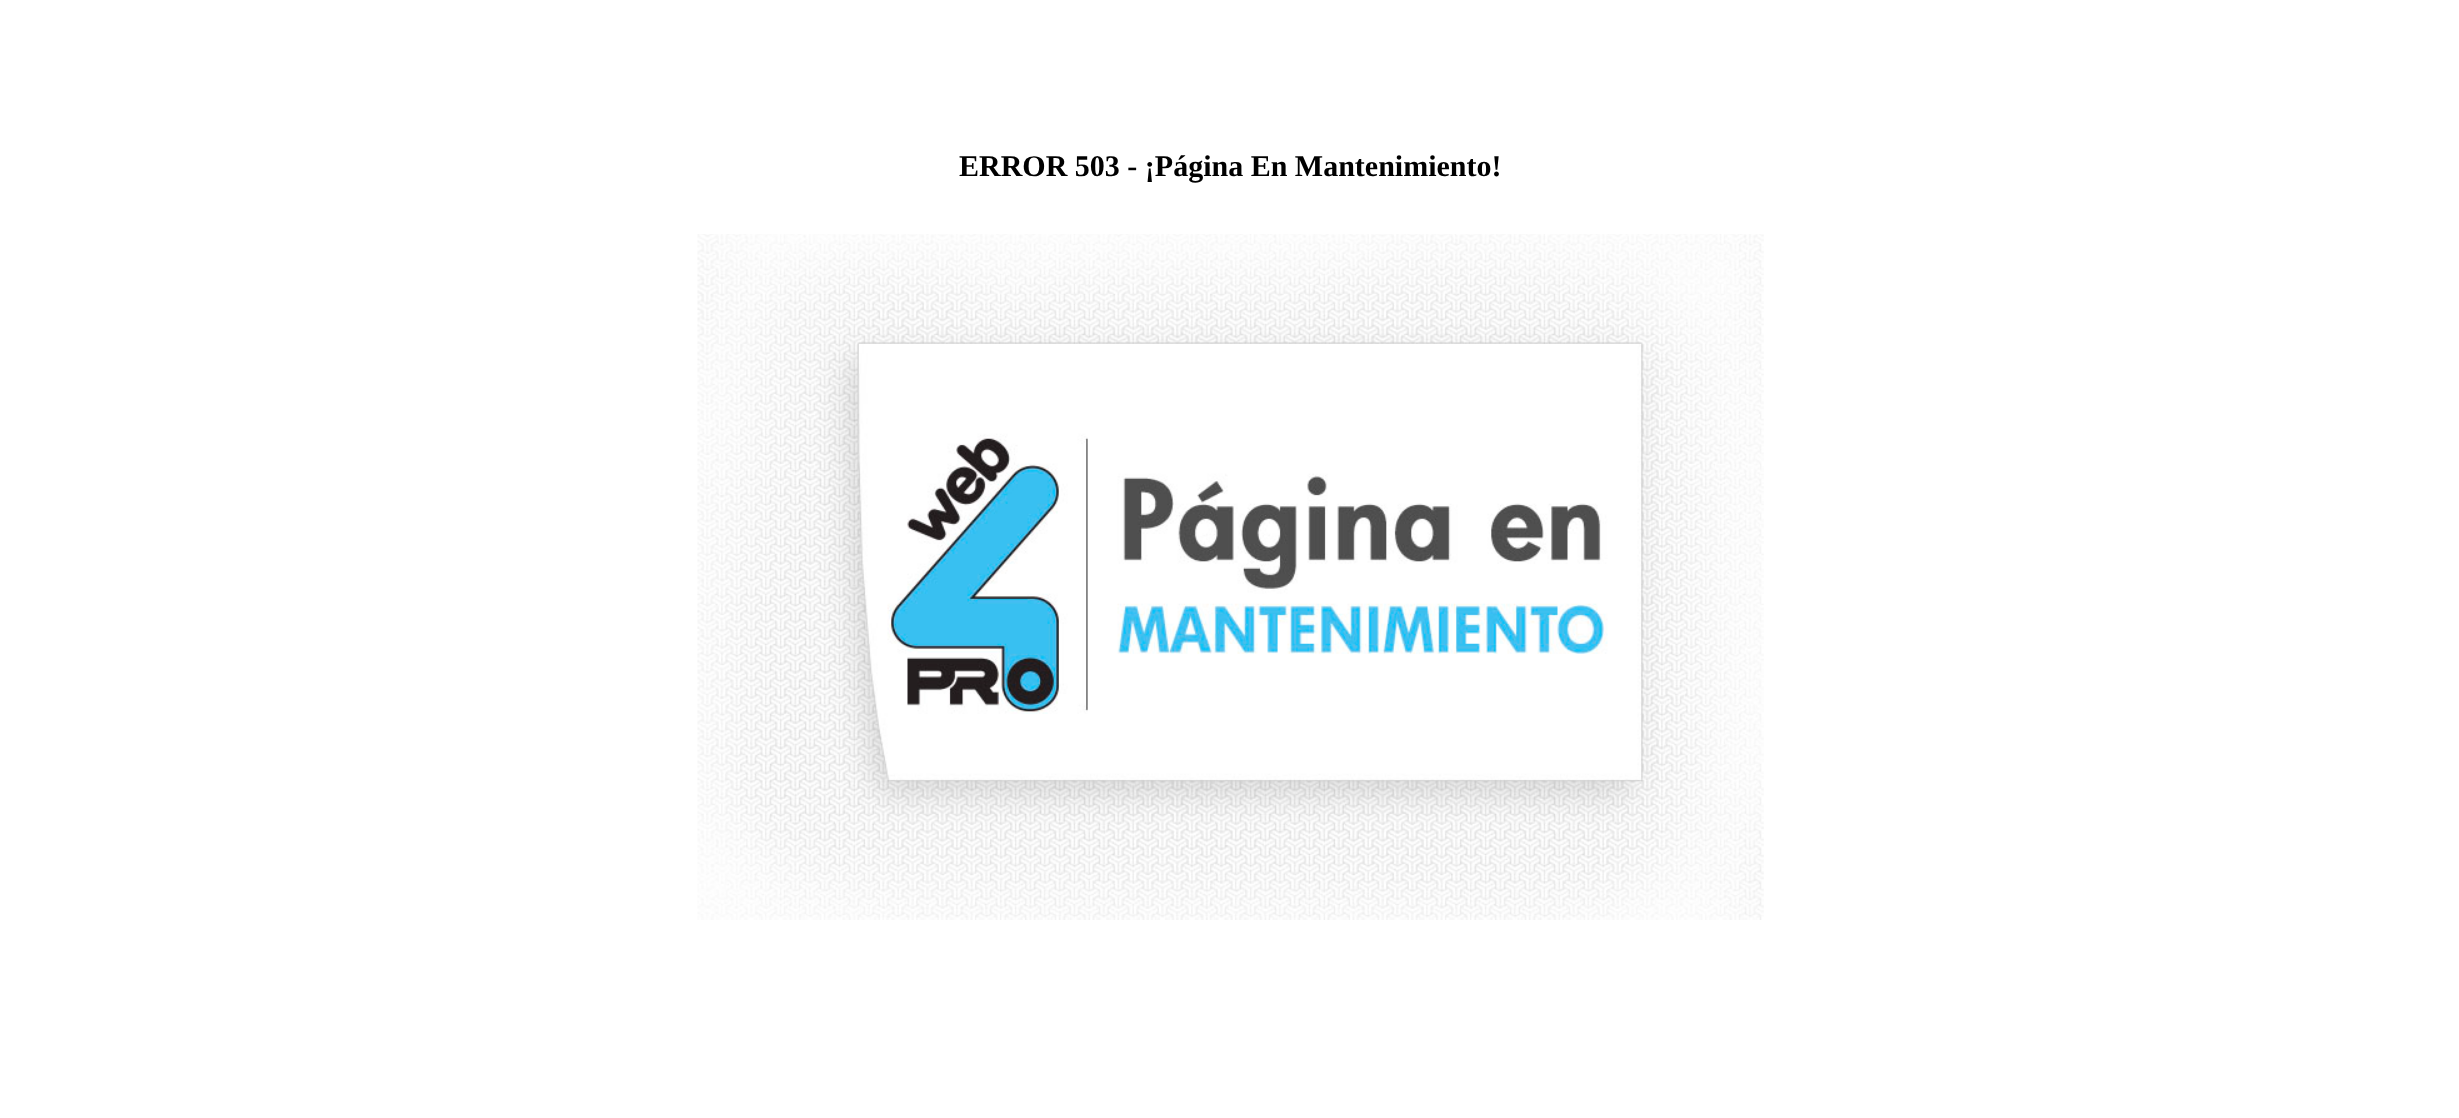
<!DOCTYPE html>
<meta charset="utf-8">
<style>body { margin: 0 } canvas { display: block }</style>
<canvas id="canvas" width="2459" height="1118"></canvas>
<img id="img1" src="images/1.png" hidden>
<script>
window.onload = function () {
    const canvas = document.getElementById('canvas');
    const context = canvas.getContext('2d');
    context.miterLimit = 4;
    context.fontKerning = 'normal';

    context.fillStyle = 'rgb(255, 255, 255)';
    context.fillRect(0, 0, 2459, 1118);
    context.drawImage(document.getElementById('img1'), 697, 234, 1067, 686);
    context.font = 'bold 30px Liberation Serif';
    context.fillStyle = 'rgb(0, 0, 0)';
    context.fillText('ERROR 503 - ¡Página En Mantenimiento!', 959, 176);
};
</script>
